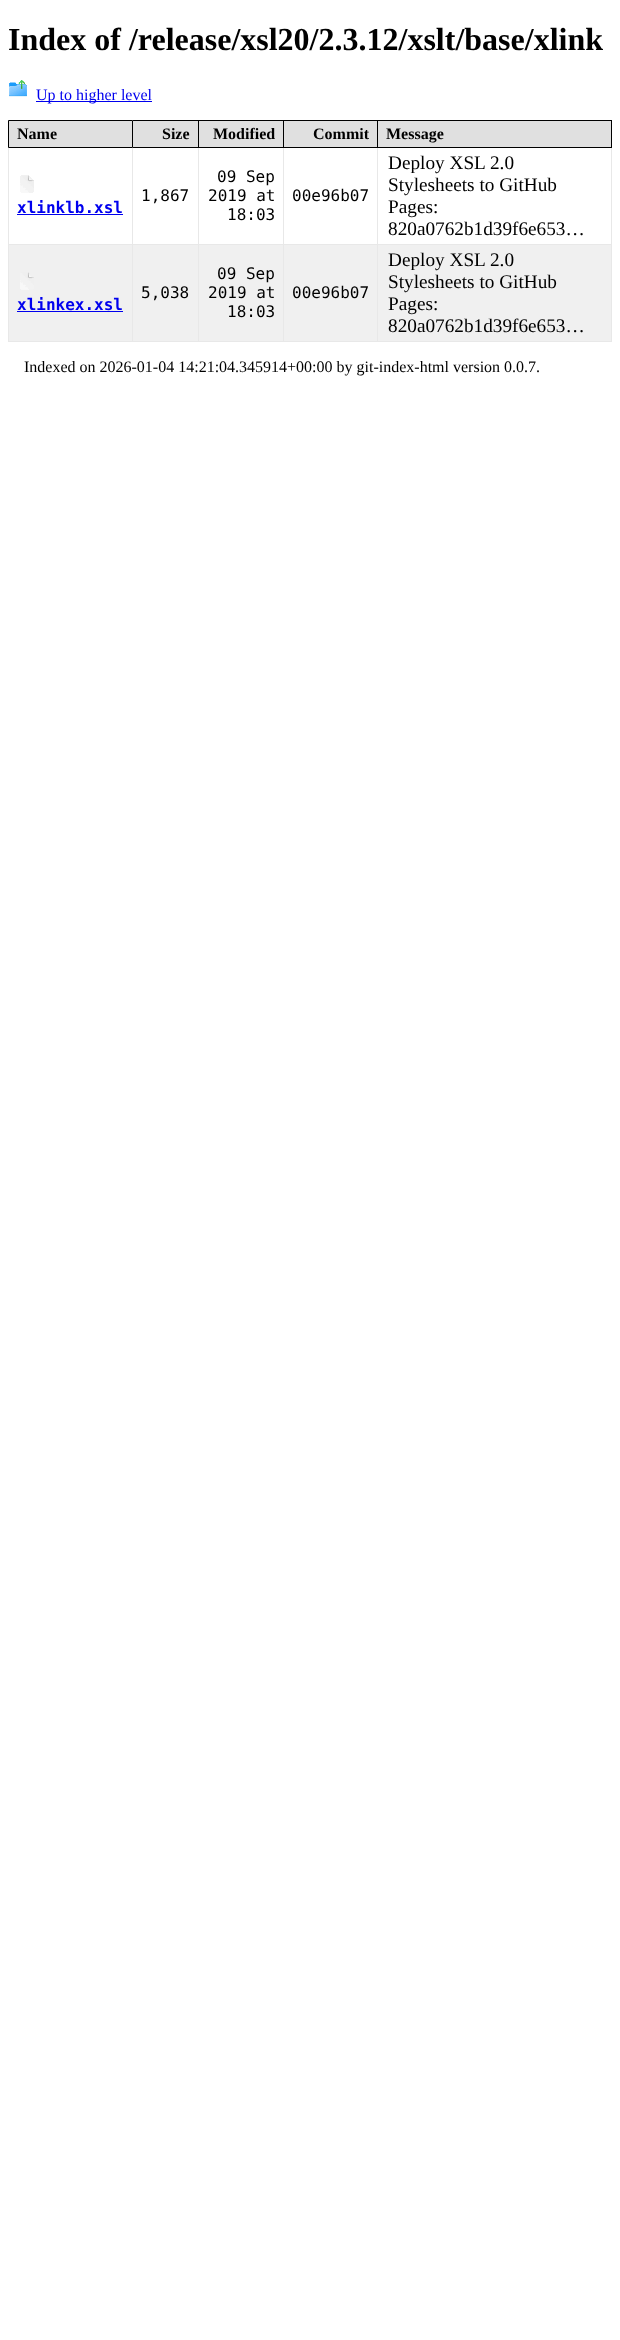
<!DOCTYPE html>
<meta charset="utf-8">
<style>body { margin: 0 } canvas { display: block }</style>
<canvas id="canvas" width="620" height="2340"></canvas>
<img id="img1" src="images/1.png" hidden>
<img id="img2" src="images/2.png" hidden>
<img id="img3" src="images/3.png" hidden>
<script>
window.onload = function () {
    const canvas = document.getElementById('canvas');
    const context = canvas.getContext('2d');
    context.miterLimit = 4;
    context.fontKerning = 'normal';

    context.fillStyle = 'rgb(255, 255, 255)';
    context.fillRect(0, 0, 620, 2340);
    context.drawImage(document.getElementById('img1'), 9, 80, 18, 17);
    context.fillStyle = 'rgb(0, 0, 238)';
    context.fillRect(36, 101, 116, 1);
    context.fillStyle = 'rgb(224, 224, 224)';
    context.beginPath();
    context.rect(8.5, 120.5, 124, 27);
    context.fill();
    context.strokeStyle = 'rgb(0, 0, 0)';
    context.stroke();
    context.fillRect(133, 121, 65, 26);
    context.fillStyle = 'rgb(0, 0, 0)';
    context.fillRect(133, 120, 479, 1);
    context.fillRect(198, 120, 1, 28);
    context.fillRect(133, 147, 66, 1);
    context.fillStyle = 'rgb(224, 224, 224)';
    context.fillRect(199, 121, 84, 26);
    context.fillStyle = 'rgb(0, 0, 0)';
    context.fillRect(283, 120, 1, 28);
    context.fillRect(199, 147, 85, 1);
    context.fillStyle = 'rgb(224, 224, 224)';
    context.fillRect(284, 121, 93, 26);
    context.fillStyle = 'rgb(0, 0, 0)';
    context.fillRect(377, 120, 1, 28);
    context.fillRect(284, 147, 94, 1);
    context.fillStyle = 'rgb(224, 224, 224)';
    context.fillRect(378, 121, 233, 26);
    context.fillStyle = 'rgb(0, 0, 0)';
    context.fillRect(611, 120, 1, 28);
    context.fillRect(378, 147, 234, 1);
    context.fillStyle = 'rgb(232, 232, 232)';
    context.fillRect(198, 148, 1, 97);
    context.fillRect(133, 244, 66, 1);
    context.fillRect(283, 148, 1, 97);
    context.fillRect(199, 244, 85, 1);
    context.fillRect(377, 148, 1, 97);
    context.fillRect(284, 244, 94, 1);
    context.fillRect(611, 148, 1, 194);
    context.fillRect(378, 244, 234, 1);
    context.fillRect(132, 148, 1, 97);
    context.fillRect(8, 244, 125, 1);
    context.fillRect(8, 148, 1, 97);
    context.drawImage(document.getElementById('img2'), 20, 175, 14, 18);
    context.fillStyle = 'rgb(0, 0, 238)';
    context.fillRect(17, 214, 106, 1);
    context.fillStyle = 'rgb(240, 240, 240)';
    context.fillRect(9, 245, 602, 96);
    context.fillStyle = 'rgb(232, 232, 232)';
    context.fillRect(198, 245, 1, 97);
    context.fillRect(133, 341, 66, 1);
    context.fillRect(283, 245, 1, 97);
    context.fillRect(199, 341, 85, 1);
    context.fillRect(377, 245, 1, 97);
    context.fillRect(284, 341, 328, 1);
    context.fillRect(132, 245, 1, 97);
    context.fillRect(8, 341, 125, 1);
    context.fillRect(8, 245, 1, 97);
    context.drawImage(document.getElementById('img3'), 20, 272, 14, 18);
    context.fillStyle = 'rgb(0, 0, 238)';
    context.fillRect(17, 311, 106, 1);
    context.font = 'bold 32px Liberation Serif';
    context.fillStyle = 'rgb(0, 0, 0)';
    context.fillText('Index of /release/xsl20/2.3.12/xslt/base/xlink', 8, 50);
    context.font = '16px Liberation Serif';
    context.fillStyle = 'rgb(0, 0, 238)';
    context.fillText('Up to higher level', 36, 100);
    context.font = 'bold 16px Liberation Serif';
    context.fillStyle = 'rgb(0, 0, 0)';
    context.fillText('Name', 17, 139);
    context.fillText('Size', 162, 139);
    context.fillText('Modified', 213, 139);
    context.fillText('Commit', 313, 139);
    context.fillText('Message', 386, 139);
    context.font = '16px DejaVu Sans Mono';
    context.fillText('1,867', 141, 201);
    context.fillText('09 Sep', 217, 182);
    context.fillText('2019 at', 208, 201);
    context.fillText('18:03', 227, 220);
    context.fillText('00e96b07', 292, 201);
    context.font = '19.25px Liberation Serif';
    context.fillText('Deploy XSL 2.0', 388, 169);
    context.fillText('Stylesheets to GitHub', 388, 191);
    context.fillText('Pages:', 388, 213);
    context.fillText('820a0762b1d39f6e653…', 388, 235);
    context.font = 'bold 16px DejaVu Sans Mono';
    context.fillStyle = 'rgb(0, 0, 238)';
    context.fillText('xlinklb.xsl', 17, 213);
    context.font = '16px DejaVu Sans Mono';
    context.fillStyle = 'rgb(0, 0, 0)';
    context.fillText('5,038', 141, 298);
    context.fillText('09 Sep', 217, 279);
    context.fillText('2019 at', 208, 298);
    context.fillText('18:03', 227, 317);
    context.fillText('00e96b07', 292, 298);
    context.font = '19.25px Liberation Serif';
    context.fillText('Deploy XSL 2.0', 388, 266);
    context.fillText('Stylesheets to GitHub', 388, 288);
    context.fillText('Pages:', 388, 310);
    context.fillText('820a0762b1d39f6e653…', 388, 332);
    context.font = 'bold 16px DejaVu Sans Mono';
    context.fillStyle = 'rgb(0, 0, 238)';
    context.fillText('xlinkex.xsl', 17, 310);
    context.font = '16px Liberation Serif';
    context.fillStyle = 'rgb(0, 0, 0)';
    context.fillText('Indexed on 2026-01-04 14:21:04.345914+00:00 by git-index-html version 0.0.7.', 24, 372);
};
</script>
